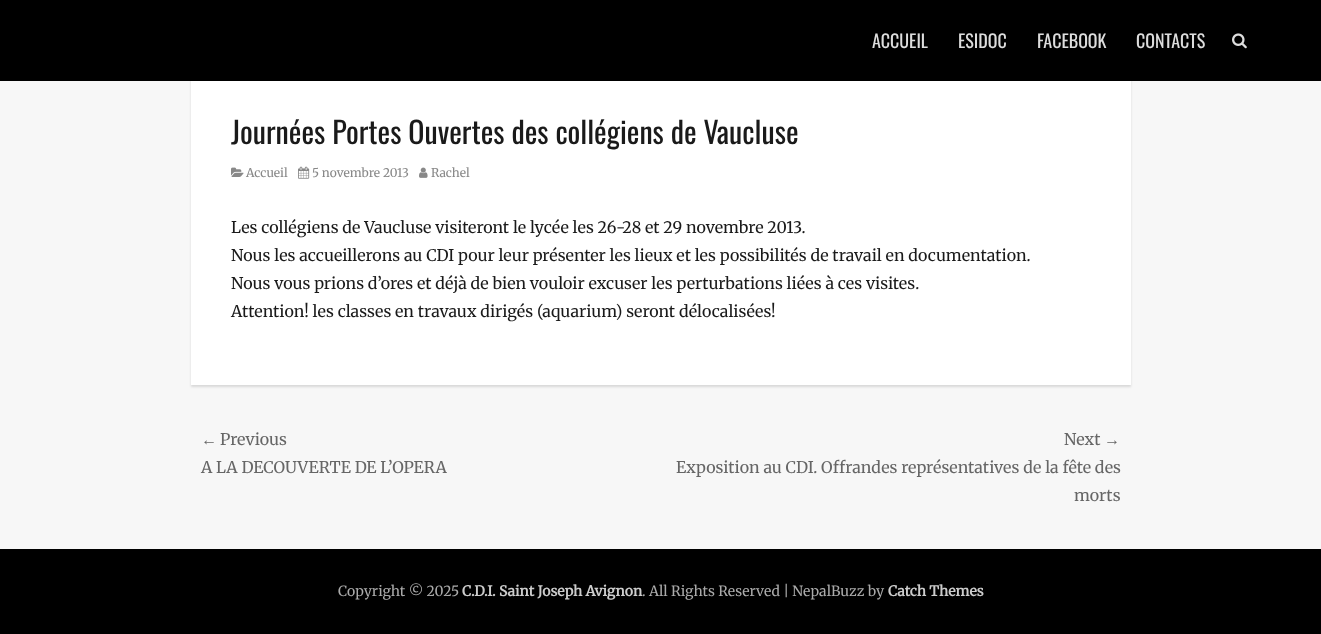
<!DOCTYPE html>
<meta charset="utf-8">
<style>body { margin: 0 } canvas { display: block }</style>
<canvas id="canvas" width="1321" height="634"></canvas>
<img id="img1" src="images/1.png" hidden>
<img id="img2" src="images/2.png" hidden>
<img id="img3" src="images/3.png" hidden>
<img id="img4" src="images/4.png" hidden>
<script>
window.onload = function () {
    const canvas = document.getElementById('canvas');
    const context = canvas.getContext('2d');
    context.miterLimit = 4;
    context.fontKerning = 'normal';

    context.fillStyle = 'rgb(247, 247, 247)';
    context.fillRect(0, 0, 1321, 634);
    context.fillStyle = 'rgba(0, 0, 0, 0.12)';
    context.filter = 'blur(1px)';
    context.beginPath();
    context.rect(191, 80, 940, 307);
    context.fill();
    context.filter = 'none';
    context.fillStyle = 'rgb(0, 0, 0)';
    context.fillRect(0, 0, 1321, 81);
    context.drawImage(document.getElementById('img1'), 1232, 33, 15, 16);
    context.fillStyle = 'rgb(255, 255, 255)';
    context.fillRect(191, 81, 940, 304);
    context.drawImage(document.getElementById('img2'), 231, 167, 13, 10);
    context.drawImage(document.getElementById('img3'), 298, 166, 12, 13);
    context.drawImage(document.getElementById('img4'), 419, 167, 9, 11);
    context.fillStyle = 'rgb(0, 0, 0)';
    context.fillRect(0, 549, 1321, 85);
    context.font = '18px Oswald';
    context.fillStyle = 'rgb(221, 221, 221)';
    context.fillText('ACCUEIL', 872, 48);
    context.fillText('ESIDOC', 958, 48);
    context.fillText('FACEBOOK', 1037, 48);
    context.fillText('CONTACTS', 1136, 48);
    context.font = '30px Oswald';
    context.fillStyle = 'rgb(26, 26, 26)';
    context.fillText('Journées Portes Ouvertes des collégiens de Vaucluse', 231, 144);
    context.font = '300 12px Merriweather';
    context.fillStyle = 'rgb(136, 136, 136)';
    context.fillText('Accueil', 246, 177);
    context.fillText('5 novembre 2013', 312, 177);
    context.fillText('Rachel', 431, 177);
    context.font = '300 16px Merriweather';
    context.fillStyle = 'rgb(26, 26, 26)';
    context.fillText('Les collégiens de Vaucluse visiteront le lycée les 26-28 et 29 novembre 2013.', 231, 233);
    context.fillText('Nous les accueillerons au CDI pour leur présenter les lieux et les possibilités de travail en documentation.', 231, 261);
    context.fillText('Nous vous prions d’ores et déjà de bien vouloir excuser les perturbations liées à ces visites.', 231, 289);
    context.fillText('Attention! les classes en travaux dirigés (aquarium) seront délocalisées!', 231, 317);
    context.font = '16px Liberation Serif';
    context.fillStyle = 'rgb(102, 102, 102)';
    context.fillText('←', 201, 445);
    context.font = '300 16px Merriweather';
    context.fillText('Previous', 220, 445);
    context.fillText('A LA DECOUVERTE DE L’OPERA', 201, 473);
    context.fillText('Next', 1064, 445);
    context.font = '16px Liberation Serif';
    context.fillText('→', 1104, 445);
    context.font = '300 16px Merriweather';
    context.fillText('Exposition au CDI. Offrandes représentatives de la fête des', 676, 473);
    context.fillText('morts', 1074, 501);
    context.font = '300 14px Merriweather';
    context.fillStyle = 'rgb(170, 170, 170)';
    context.fillText('Copyright © 2025', 338, 596);
    context.font = 'bold 14px Merriweather';
    context.fillStyle = 'rgb(204, 204, 204)';
    context.fillText('C.D.I. Saint Joseph Avignon', 462, 596);
    context.font = '300 14px Merriweather';
    context.fillStyle = 'rgb(170, 170, 170)';
    context.fillText('. All Rights Reserved | NepalBuzz by', 642, 596);
    context.font = 'bold 14px Merriweather';
    context.fillStyle = 'rgb(204, 204, 204)';
    context.fillText('Catch Themes', 888, 596);
};
</script>
